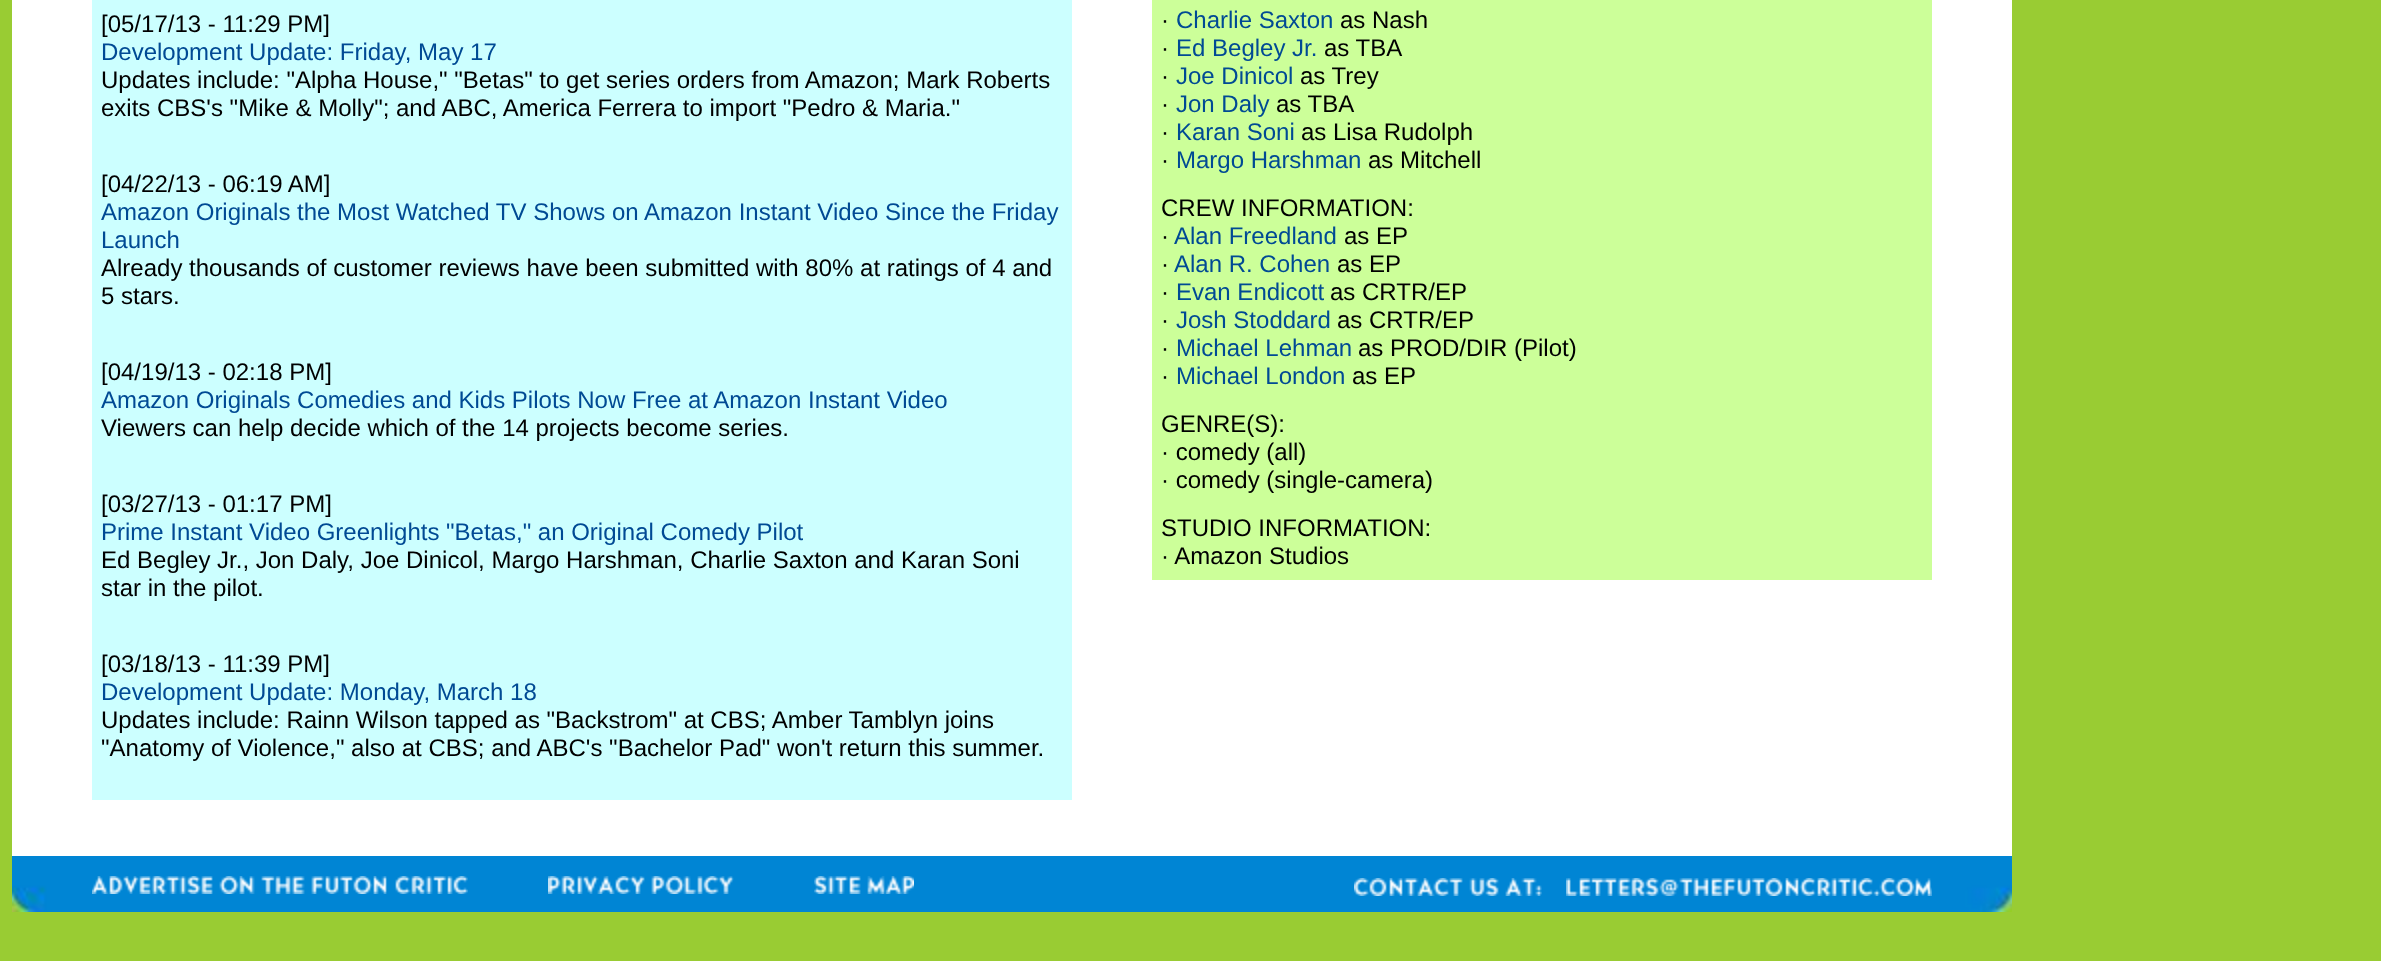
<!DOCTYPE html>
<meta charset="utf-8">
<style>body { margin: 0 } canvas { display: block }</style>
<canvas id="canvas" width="2381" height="961"></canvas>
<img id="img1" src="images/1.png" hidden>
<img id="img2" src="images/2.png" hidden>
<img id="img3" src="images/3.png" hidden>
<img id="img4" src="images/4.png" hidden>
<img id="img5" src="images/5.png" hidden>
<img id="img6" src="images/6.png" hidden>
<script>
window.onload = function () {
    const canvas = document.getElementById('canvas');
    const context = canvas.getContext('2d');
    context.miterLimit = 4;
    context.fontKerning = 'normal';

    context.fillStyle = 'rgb(153, 204, 51)';
    context.fillRect(0, 0, 2381, 961);
    context.fillStyle = 'rgb(255, 255, 255)';
    context.fillRect(12, 0, 80, 856);
    context.fillRect(92, 800, 980, 56);
    context.fillStyle = 'rgb(204, 255, 255)';
    context.fillRect(92, 0, 980, 800);
    context.fillStyle = 'rgb(255, 255, 255)';
    context.fillRect(1072, 0, 80, 856);
    context.fillRect(1152, 580, 780, 276);
    context.fillStyle = 'rgb(204, 255, 153)';
    context.fillRect(1152, 0, 780, 580);
    context.fillStyle = 'rgb(255, 255, 255)';
    context.fillRect(1932, 0, 80, 856);
    context.drawImage(document.getElementById('img1'), 12, 856, 2000, 56);
    context.drawImage(document.getElementById('img2'), 92, 876, 376, 18);
    context.drawImage(document.getElementById('img3'), 548, 876, 186, 18);
    context.drawImage(document.getElementById('img4'), 814, 876, 100, 18);
    context.drawImage(document.getElementById('img5'), 1354, 878, 188, 18);
    context.drawImage(document.getElementById('img6'), 1566, 878, 366, 18);
    context.font = '24px Liberation Sans';
    context.fillStyle = 'rgb(0, 0, 0)';
    context.fillText('[05/17/13 - 11:29 PM]', 101, 32);
    context.fillStyle = 'rgb(0, 74, 148)';
    context.fillText('Development Update: Friday, May 17', 101, 60);
    context.fillStyle = 'rgb(0, 0, 0)';
    context.fillText('Updates include: "Alpha House," "Betas" to get series orders from Amazon; Mark Roberts', 101, 88);
    context.fillText('exits CBS\'s "Mike & Molly"; and ABC, America Ferrera to import "Pedro & Maria."', 101, 116);
    context.fillText('[04/22/13 - 06:19 AM]', 101, 192);
    context.fillStyle = 'rgb(0, 74, 148)';
    context.fillText('Amazon Originals the Most Watched TV Shows on Amazon Instant Video Since the Friday', 101, 220);
    context.fillText('Launch', 101, 248);
    context.fillStyle = 'rgb(0, 0, 0)';
    context.fillText('Already thousands of customer reviews have been submitted with 80% at ratings of 4 and', 101, 276);
    context.fillText('5 stars.', 101, 304);
    context.fillText('[04/19/13 - 02:18 PM]', 101, 380);
    context.fillStyle = 'rgb(0, 74, 148)';
    context.fillText('Amazon Originals Comedies and Kids Pilots Now Free at Amazon Instant Video', 101, 408);
    context.fillStyle = 'rgb(0, 0, 0)';
    context.fillText('Viewers can help decide which of the 14 projects become series.', 101, 436);
    context.fillText('[03/27/13 - 01:17 PM]', 101, 512);
    context.fillStyle = 'rgb(0, 74, 148)';
    context.fillText('Prime Instant Video Greenlights "Betas," an Original Comedy Pilot', 101, 540);
    context.fillStyle = 'rgb(0, 0, 0)';
    context.fillText('Ed Begley Jr., Jon Daly, Joe Dinicol, Margo Harshman, Charlie Saxton and Karan Soni', 101, 568);
    context.fillText('star in the pilot.', 101, 596);
    context.fillText('[03/18/13 - 11:39 PM]', 101, 672);
    context.fillStyle = 'rgb(0, 74, 148)';
    context.fillText('Development Update: Monday, March 18', 101, 700);
    context.fillStyle = 'rgb(0, 0, 0)';
    context.fillText('Updates include: Rainn Wilson tapped as "Backstrom" at CBS; Amber Tamblyn joins', 101, 728);
    context.fillText('"Anatomy of Violence," also at CBS; and ABC\'s "Bachelor Pad" won\'t return this summer.', 101, 756);
    context.fillText('·', 1161, 28);
    context.fillStyle = 'rgb(0, 74, 148)';
    context.fillText('Charlie Saxton', 1176, 28);
    context.fillStyle = 'rgb(0, 0, 0)';
    context.fillText('as Nash', 1340, 28);
    context.fillText('·', 1161, 56);
    context.fillStyle = 'rgb(0, 74, 148)';
    context.fillText('Ed Begley Jr.', 1176, 56);
    context.fillStyle = 'rgb(0, 0, 0)';
    context.fillText('as TBA', 1324, 56);
    context.fillText('·', 1161, 84);
    context.fillStyle = 'rgb(0, 74, 148)';
    context.fillText('Joe Dinicol', 1176, 84);
    context.fillStyle = 'rgb(0, 0, 0)';
    context.fillText('as Trey', 1300, 84);
    context.fillText('·', 1161, 112);
    context.fillStyle = 'rgb(0, 74, 148)';
    context.fillText('Jon Daly', 1176, 112);
    context.fillStyle = 'rgb(0, 0, 0)';
    context.fillText('as TBA', 1276, 112);
    context.fillText('·', 1161, 140);
    context.fillStyle = 'rgb(0, 74, 148)';
    context.fillText('Karan Soni', 1176, 140);
    context.fillStyle = 'rgb(0, 0, 0)';
    context.fillText('as Lisa Rudolph', 1301, 140);
    context.fillText('·', 1161, 168);
    context.fillStyle = 'rgb(0, 74, 148)';
    context.fillText('Margo Harshman', 1176, 168);
    context.fillStyle = 'rgb(0, 0, 0)';
    context.fillText('as Mitchell', 1368, 168);
    context.fillText('CREW INFORMATION:', 1161, 216);
    context.fillText('·', 1161, 244);
    context.fillStyle = 'rgb(0, 74, 148)';
    context.fillText('Alan Freedland', 1174, 244);
    context.fillStyle = 'rgb(0, 0, 0)';
    context.fillText('as EP', 1344, 244);
    context.fillText('·', 1161, 272);
    context.fillStyle = 'rgb(0, 74, 148)';
    context.fillText('Alan R. Cohen', 1174, 272);
    context.fillStyle = 'rgb(0, 0, 0)';
    context.fillText('as EP', 1337, 272);
    context.fillText('·', 1161, 300);
    context.fillStyle = 'rgb(0, 74, 148)';
    context.fillText('Evan Endicott', 1176, 300);
    context.fillStyle = 'rgb(0, 0, 0)';
    context.fillText('as CRTR/EP', 1330, 300);
    context.fillText('·', 1161, 328);
    context.fillStyle = 'rgb(0, 74, 148)';
    context.fillText('Josh Stoddard', 1176, 328);
    context.fillStyle = 'rgb(0, 0, 0)';
    context.fillText('as CRTR/EP', 1337, 328);
    context.fillText('·', 1161, 356);
    context.fillStyle = 'rgb(0, 74, 148)';
    context.fillText('Michael Lehman', 1176, 356);
    context.fillStyle = 'rgb(0, 0, 0)';
    context.fillText('as PROD/DIR (Pilot)', 1358, 356);
    context.fillText('·', 1161, 384);
    context.fillStyle = 'rgb(0, 74, 148)';
    context.fillText('Michael London', 1176, 384);
    context.fillStyle = 'rgb(0, 0, 0)';
    context.fillText('as EP', 1352, 384);
    context.fillText('GENRE(S):', 1161, 432);
    context.fillText('· comedy (all)', 1161, 460);
    context.fillText('· comedy (single-camera)', 1161, 488);
    context.fillText('STUDIO INFORMATION:', 1161, 536);
    context.fillText('· Amazon Studios', 1161, 564);
};
</script>
